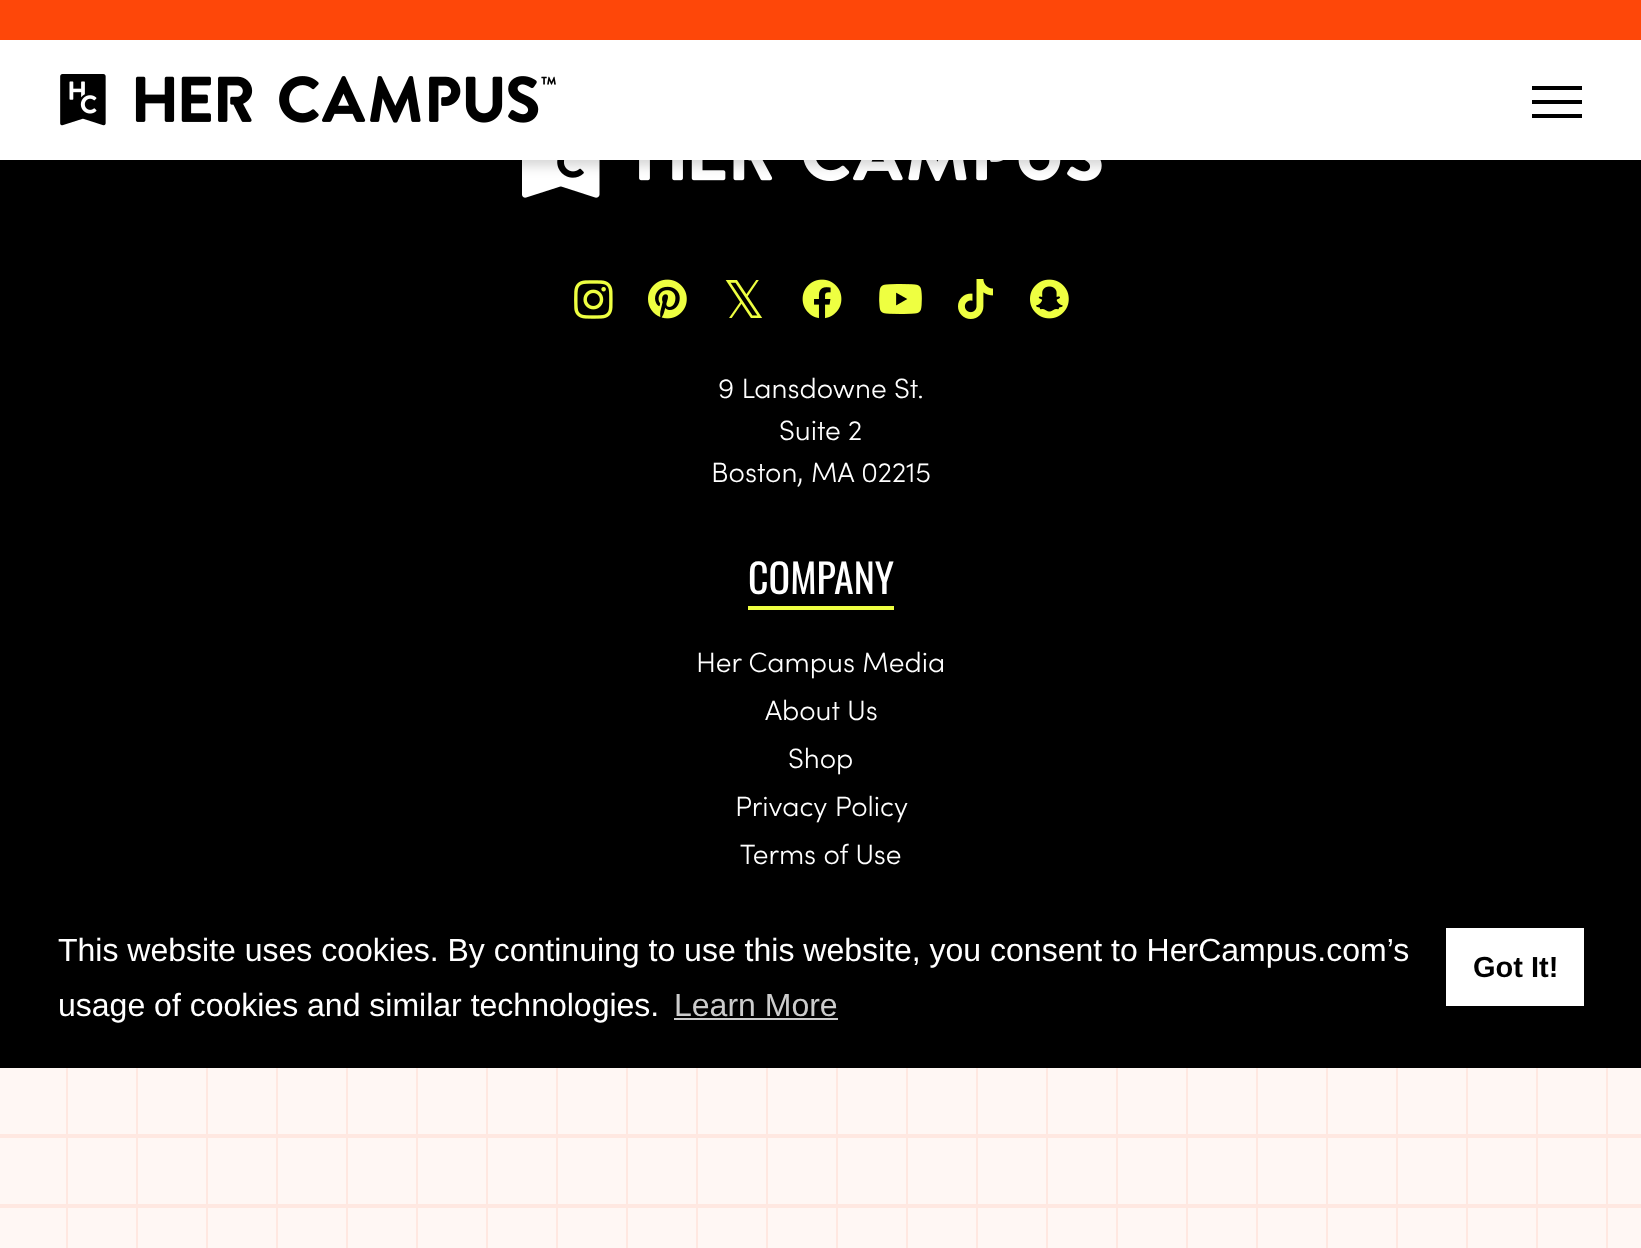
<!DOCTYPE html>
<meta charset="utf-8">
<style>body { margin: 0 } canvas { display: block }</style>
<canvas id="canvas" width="1641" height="1248"></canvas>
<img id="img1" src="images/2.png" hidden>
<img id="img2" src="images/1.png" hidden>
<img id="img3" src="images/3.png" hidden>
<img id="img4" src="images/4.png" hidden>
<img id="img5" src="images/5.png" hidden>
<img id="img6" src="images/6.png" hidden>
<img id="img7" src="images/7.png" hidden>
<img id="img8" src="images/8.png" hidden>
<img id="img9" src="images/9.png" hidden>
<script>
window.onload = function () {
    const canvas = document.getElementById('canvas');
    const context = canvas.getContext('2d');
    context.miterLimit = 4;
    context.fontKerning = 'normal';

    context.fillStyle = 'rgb(0, 0, 0)';
    context.fillRect(0, 0, 1641, 1248);
    context.drawImage(document.getElementById('img1'), 522, 160, 580, 38);
    context.fillStyle = 'rgba(0, 0, 0, 0.16)';
    context.filter = 'blur(6px)';
    context.beginPath();
    context.rect(0, 6, 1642, 160);
    context.fill();
    context.filter = 'none';
    context.fillStyle = 'rgb(255, 255, 255)';
    context.fillRect(0, 40, 1641, 120);
    context.fillStyle = 'rgb(254, 71, 9)';
    context.fillRect(0, 0, 1641, 40);
    context.drawImage(document.getElementById('img2'), 60, 74, 496, 52);
    context.fillStyle = 'rgb(0, 0, 0)';
    context.fillRect(1532, 86, 50, 4);
    context.fillRect(1532, 100, 50, 4);
    context.fillRect(1532, 114, 50, 4);
    context.drawImage(document.getElementById('img3'), 574, 280, 39, 39);
    context.drawImage(document.getElementById('img4'), 648, 279, 39, 40);
    context.drawImage(document.getElementById('img5'), 802, 279, 40, 40);
    context.drawImage(document.getElementById('img6'), 879, 284, 43, 30);
    context.drawImage(document.getElementById('img7'), 958, 279, 35, 40);
    context.drawImage(document.getElementById('img8'), 1030, 279, 39, 40);
    context.fillStyle = 'rgb(238, 255, 65)';
    context.fillRect(748, 606, 146, 4);
    context.fillStyle = 'rgb(255, 255, 255)';
    context.fillRect(1446, 928, 138, 78);
    context.fillStyle = 'rgb(204, 204, 204)';
    context.fillRect(674, 1018, 164, 2);
    context.fillStyle = 'rgb(255, 247, 244)';
    context.fillRect(0, 1068, 1641, 180);
    context.drawImage(document.getElementById('img9'), 66, 1068, 1542, 180);
    context.fillStyle = 'rgb(255, 232, 225)';
    context.fillRect(0, 1134, 1641, 4);
    context.fillRect(0, 1204, 1641, 4);
    context.font = '52px DejaVu Sans';
    context.fillStyle = 'rgb(238, 255, 65)';
    context.fillText('𝕏', 723, 318);
    context.font = '300 28px Sofia';
    context.fillStyle = 'rgb(255, 255, 255)';
    context.fillText('9 Lansdowne St.', 718, 398);
    context.fillText('Suite 2', 779, 440);
    context.fillText('Boston, MA 02215', 711, 482);
    context.font = '40px Oswald';
    context.fillText('COMPANY', 748, 594);
    context.font = '300 28px Sofia';
    context.fillText('Her Campus Media', 696, 672);
    context.fillText('About Us', 765, 720);
    context.fillText('Shop', 788, 768);
    context.fillText('Privacy Policy', 735, 816);
    context.fillText('Terms of Use', 740, 864);
    context.font = '32px Liberation Sans';
    context.fillText('This website uses cookies. By continuing to use this website, you consent to HerCampus.com’s', 58, 961);
    context.font = 'bold 29px Liberation Sans';
    context.fillStyle = 'rgb(0, 0, 0)';
    context.fillText('Got It!', 1473, 977);
    context.font = '32px Liberation Sans';
    context.fillStyle = 'rgb(255, 255, 255)';
    context.fillText('usage of cookies and similar technologies.', 58, 1016);
    context.fillStyle = 'rgb(204, 204, 204)';
    context.fillText('Learn More', 674, 1016);
};
</script>
